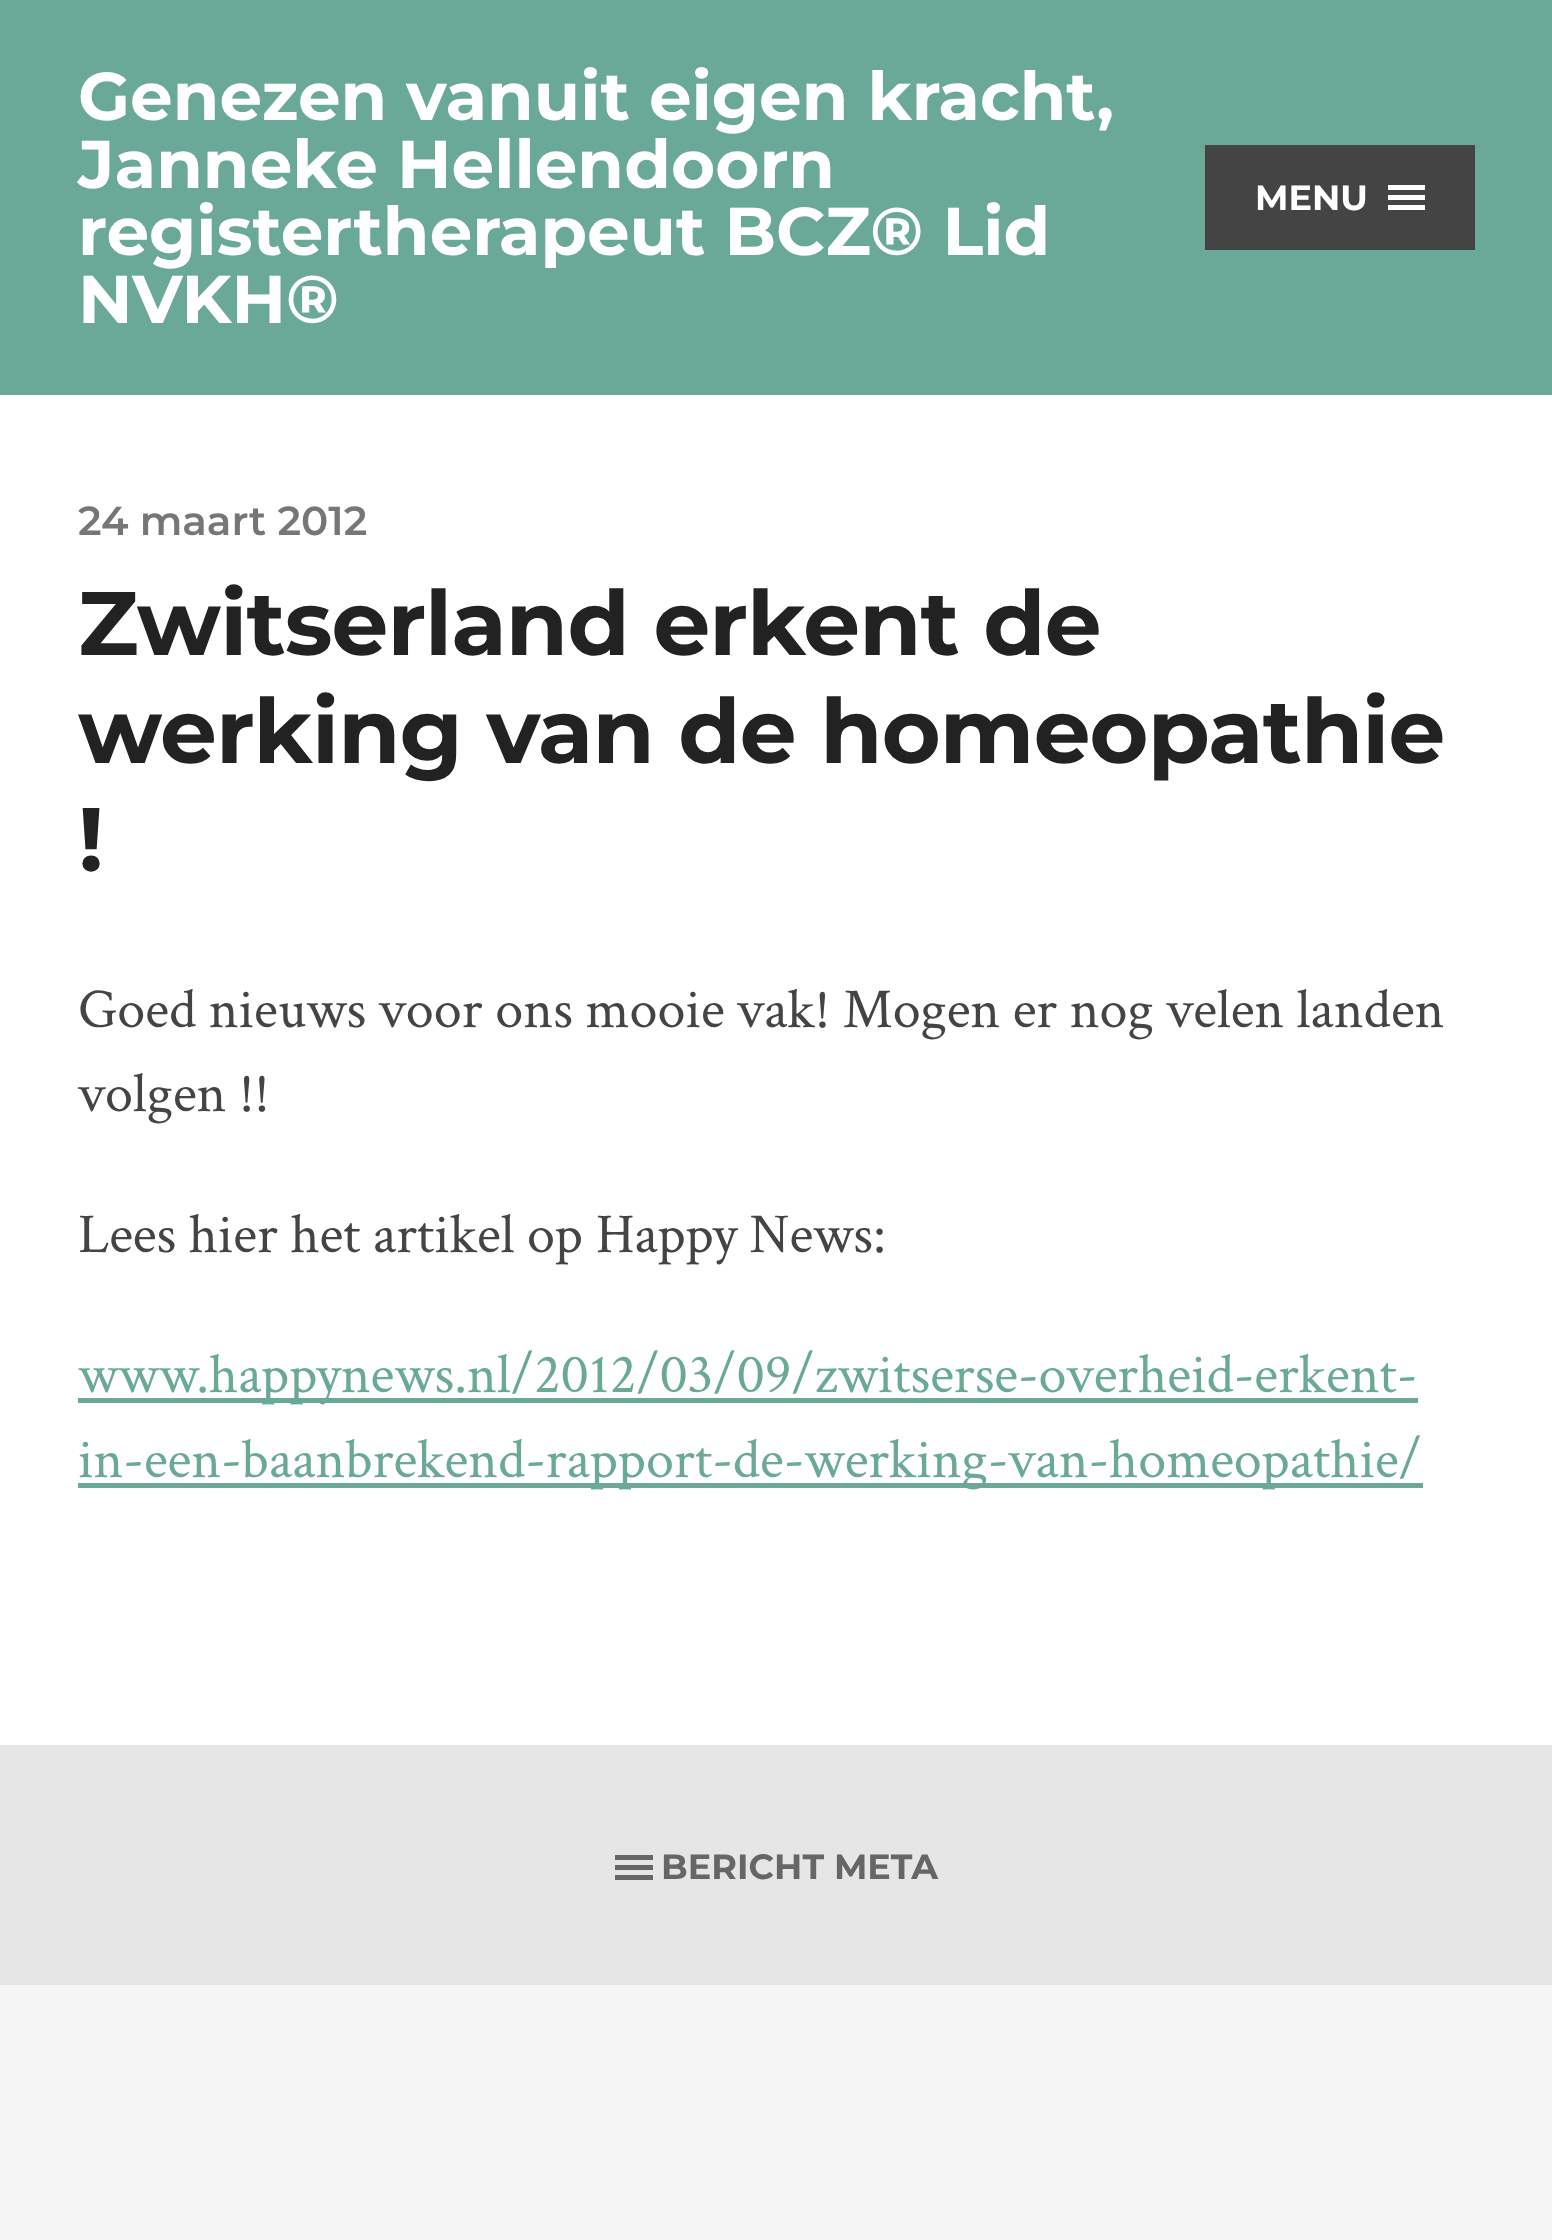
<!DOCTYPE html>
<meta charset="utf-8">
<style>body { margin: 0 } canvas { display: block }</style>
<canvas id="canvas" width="1552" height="2240"></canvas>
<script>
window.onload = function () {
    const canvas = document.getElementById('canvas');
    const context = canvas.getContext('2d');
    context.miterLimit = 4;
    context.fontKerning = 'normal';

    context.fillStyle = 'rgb(245, 245, 245)';
    context.fillRect(0, 0, 1552, 2240);
    context.fillStyle = 'rgb(106, 168, 151)';
    context.fillRect(0, 0, 1552, 395);
    context.fillStyle = 'rgb(68, 68, 68)';
    context.fillRect(1205, 145, 270, 105);
    context.fillStyle = 'rgb(255, 255, 255)';
    context.fillRect(1388, 185, 37, 5);
    context.fillRect(1388, 195, 37, 5);
    context.fillRect(1388, 205, 37, 5);
    context.fillRect(0, 395, 1552, 1350);
    context.fillStyle = 'rgb(106, 168, 151)';
    context.fillRect(78, 1398, 1340, 5);
    context.fillRect(78, 1483, 1345, 5);
    context.fillStyle = 'rgb(230, 230, 230)';
    context.fillRect(0, 1745, 1552, 240);
    context.fillStyle = 'rgb(102, 102, 102)';
    context.fillRect(615, 1855, 38, 5);
    context.fillRect(615, 1865, 38, 5);
    context.fillRect(615, 1875, 38, 5);
    context.font = '100 67.5px "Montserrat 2"';
    context.fillStyle = 'rgb(255, 255, 255)';
    context.fillText('Genezen vanuit eigen kracht,', 78, 120);
    context.fillText('Janneke Hellendoorn', 78, 188);
    context.fillText('registertherapeut BCZ® Lid', 78, 255);
    context.fillText('NVKH®', 78, 323);
    context.font = '100 35px "Montserrat 2"';
    context.fillText('MENU', 1255, 210);
    context.font = '100 40.5px Montserrat';
    context.fillStyle = 'rgb(118, 118, 118)';
    context.fillText('24 maart 2012', 78, 535);
    context.letterSpacing = '-0.9px';
    context.font = '100 90px "Montserrat 2"';
    context.fillStyle = 'rgb(34, 34, 34)';
    context.fillText('Zwitserland erkent de', 78, 655);
    context.fillText('werking van de homeopathie', 78, 763);
    context.fillText('!', 78, 871);
    context.letterSpacing = '0px';
    context.font = '56.25px Crimson Text';
    context.fillStyle = 'rgb(68, 68, 68)';
    context.fillText('Goed nieuws voor ons mooie vak! Mogen er nog velen landen', 78, 1027);
    context.fillText('volgen !!', 78, 1111);
    context.fillText('Lees hier het artikel op Happy News:', 78, 1252);
    context.fillStyle = 'rgb(106, 168, 151)';
    context.fillText('www.happynews.nl/2012/03/09/zwitserse-overheid-erkent-', 78, 1392);
    context.fillText('in-een-baanbrekend-rapport-de-werking-van-homeopathie/', 78, 1477);
    context.font = '100 35px "Montserrat 2"';
    context.fillStyle = 'rgb(102, 102, 102)';
    context.fillText('BERICHT META', 661, 1879);
};
</script>
